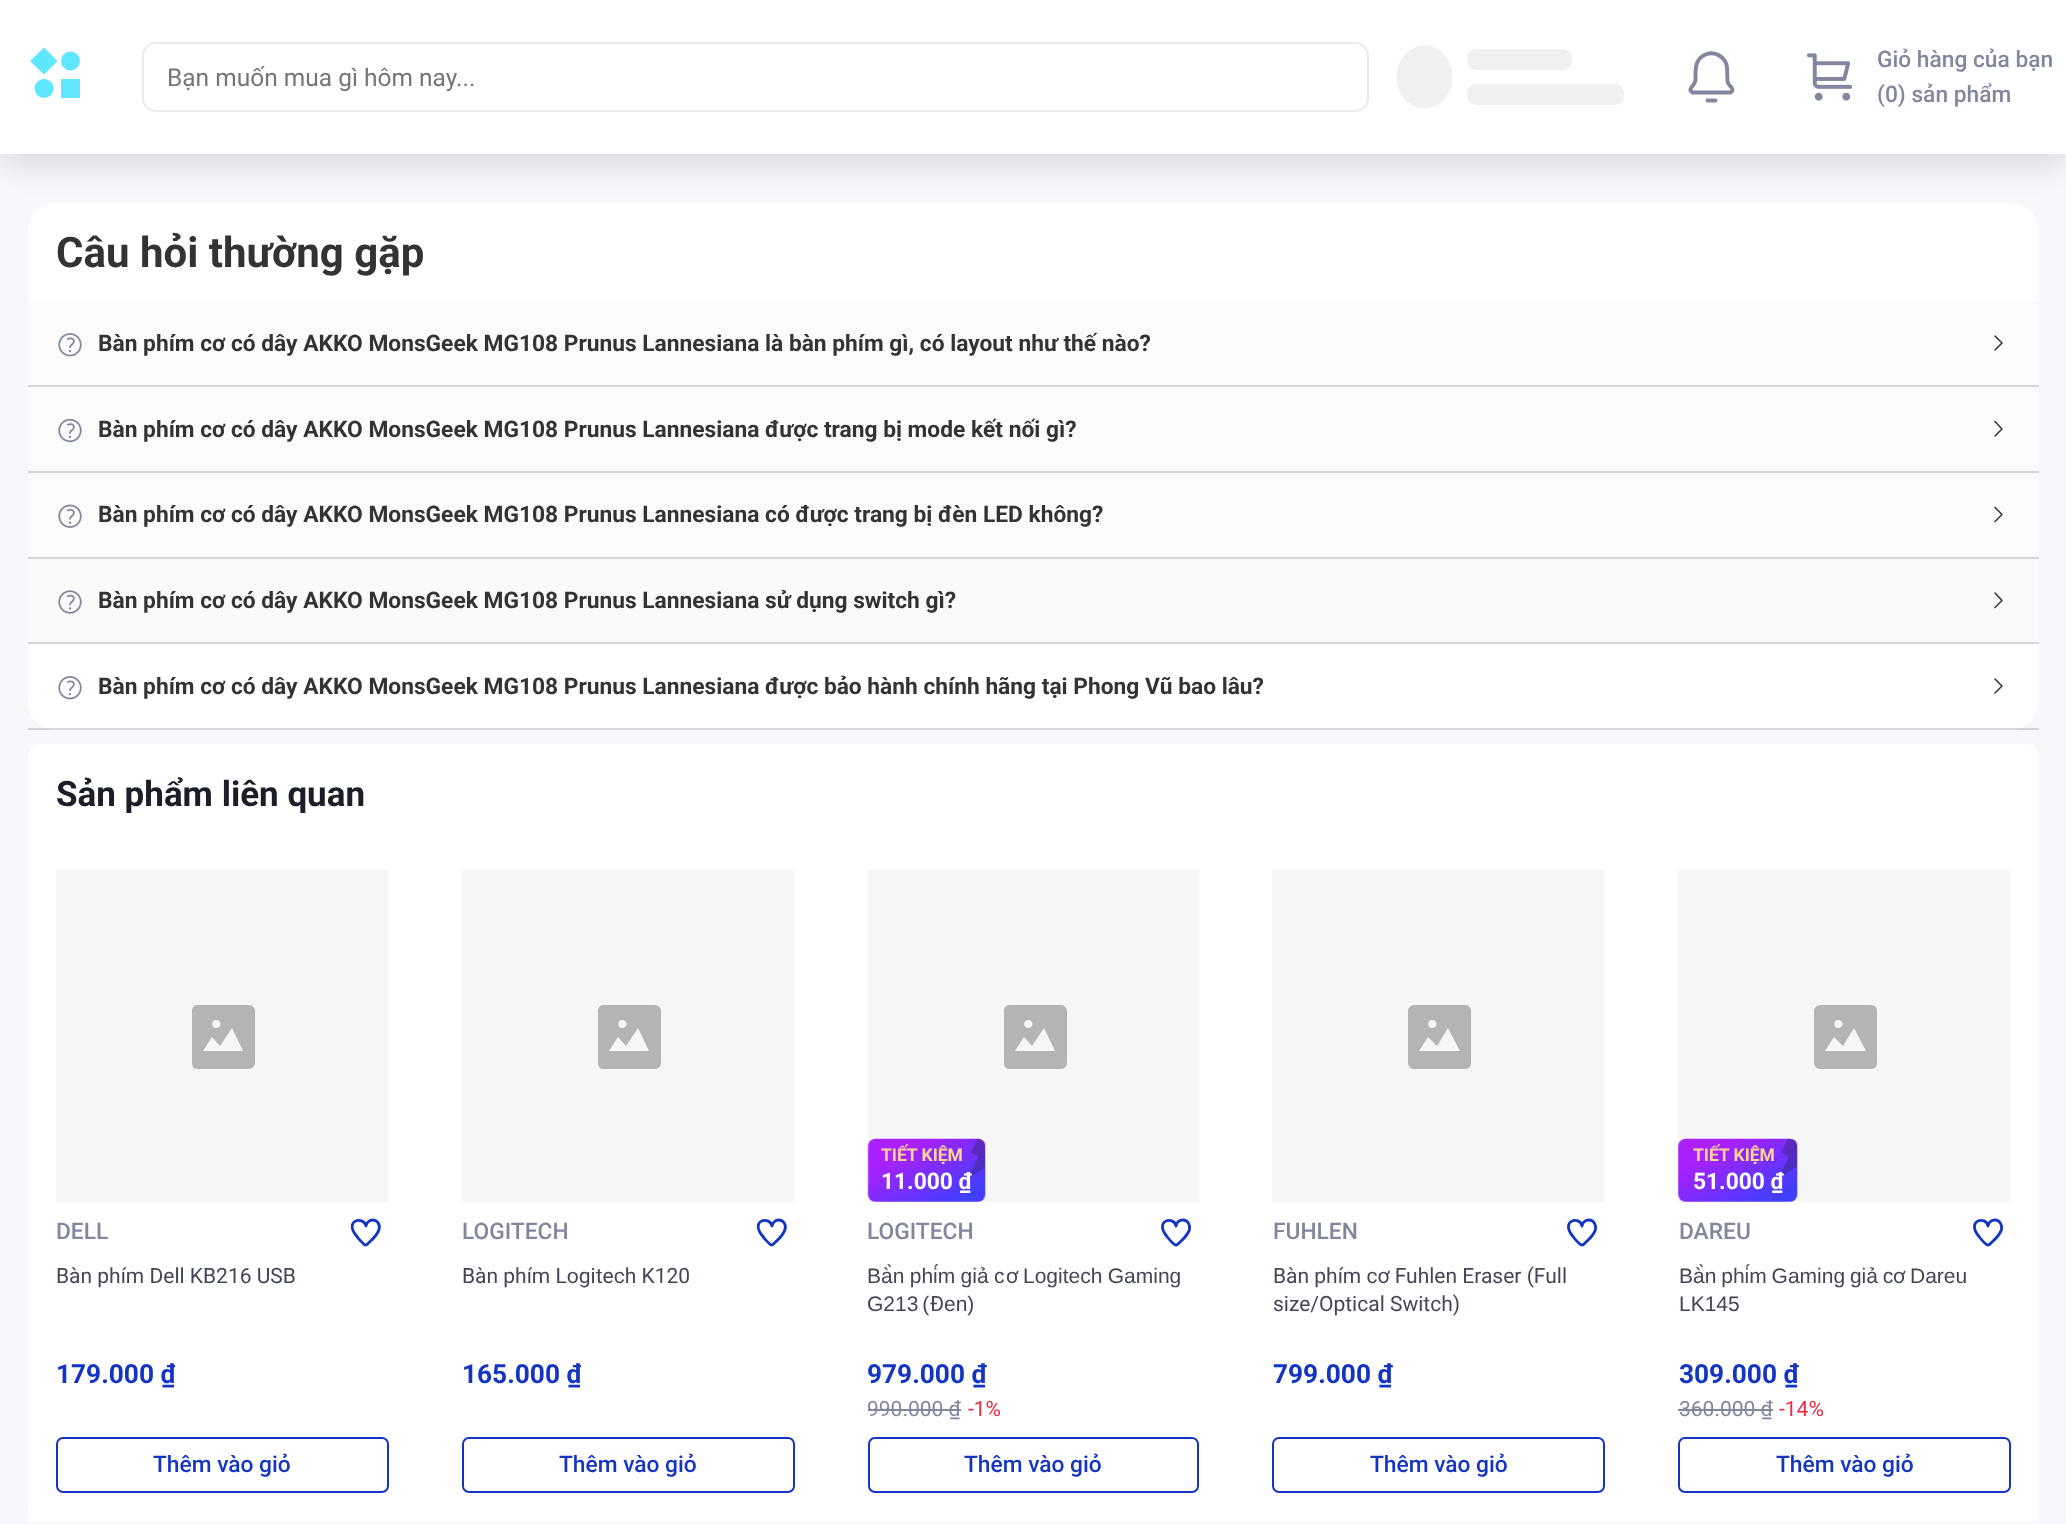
<!DOCTYPE html>
<meta charset="utf-8">
<style>body { margin: 0 } canvas { display: block }</style>
<canvas id="canvas" width="2066" height="1524"></canvas>
<img id="img1" src="images/1.png" hidden>
<img id="img2" src="images/2.png" hidden>
<img id="img3" src="images/3.png" hidden>
<img id="img4" src="images/4.png" hidden>
<img id="img5" src="images/5.png" hidden>
<img id="img6" src="images/6.png" hidden>
<img id="img7" src="images/7.png" hidden>
<img id="img8" src="images/8.png" hidden>
<script>
window.onload = function () {
    const canvas = document.getElementById('canvas');
    const context = canvas.getContext('2d');
    context.miterLimit = 4;
    context.fontKerning = 'normal';

    context.fillStyle = 'rgb(248, 248, 252)';
    context.fillRect(0, 0, 2066, 1524);
    context.fillStyle = 'rgb(255, 255, 255)';
    context.beginPath();
    context.roundRect(28, 203, 2011, 527, 28);
    context.fill();
    context.fillStyle = 'rgba(0, 0, 0, 0.1)';
    context.filter = 'blur(14px)';
    context.beginPath();
    context.rect(0, 14, 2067, 154);
    context.fill();
    context.filter = 'none';
    context.fillStyle = 'rgb(255, 255, 255)';
    context.fillRect(0, 0, 2066, 154);
    context.fillStyle = 'rgb(95, 231, 255)';
    context.beginPath();
    context.moveTo(44, 74.5);
    context.lineTo(30, 61);
    context.lineTo(44, 47.5);
    context.lineTo(57.5, 61);
    context.closePath();
    context.fill();
    context.beginPath();
    context.arc(70.5, 61, 9.5, 0, 2 * Math.PI);
    context.fill();
    context.beginPath();
    context.arc(44, 88.5, 9.5, 0, 2 * Math.PI);
    context.fill();
    context.fillRect(61, 79, 19, 19);
    context.beginPath();
    context.roundRect(143, 43, 1225, 68, 13);
    context.strokeStyle = 'rgb(234, 234, 234)';
    context.lineWidth = 2;
    context.stroke();
    context.fillStyle = 'rgb(240, 240, 240)';
    context.beginPath();
    context.ellipse(1424.5, 77, 28, 31.5, 0, 0, 2 * Math.PI);
    context.fill();
    context.beginPath();
    context.roundRect(1467, 49, 105, 21, 9);
    context.fill();
    context.beginPath();
    context.roundRect(1467, 84, 157, 21, 9);
    context.fill();
    context.beginPath();
    context.moveTo(1695.5, 79.5);
    context.bezierCurveTo(1695.5, 70, 1694.5, 59, 1705.5, 54.5);
    context.bezierCurveTo(1715, 50.5, 1725.5, 57, 1727, 67);
    context.lineTo(1727.5, 81.5);
    context.bezierCurveTo(1728, 85, 1732.5, 87, 1732.5, 89.5);
    context.bezierCurveTo(1732.5, 91, 1731.5, 92, 1730.5, 92.5);
    context.lineTo(1692.5, 92.5);
    context.lineTo(1690.5, 90.5);
    context.bezierCurveTo(1689.5, 87.5, 1695.5, 85, 1695.5, 79.5);
    context.closePath();
    context.moveTo(1707.5, 100.5);
    context.lineTo(1715.5, 100.5);
    context.strokeStyle = 'rgb(130, 134, 158)';
    context.lineWidth = 3.9;
    context.lineCap = 'round';
    context.lineJoin = 'round';
    context.stroke();
    context.drawImage(document.getElementById('img1'), 1806, 53, 47, 48);
    context.fillStyle = 'rgb(250, 250, 250)';
    context.fillRect(28, 559, 2011, 83);
    context.fillStyle = 'rgb(213, 213, 213)';
    context.fillRect(28, 557, 2011, 2);
    context.fillStyle = 'rgb(251, 251, 251)';
    context.fillRect(28, 301, 2011, 84);
    context.fillStyle = 'rgb(213, 213, 213)';
    context.fillRect(28, 385, 2011, 2);
    context.drawImage(document.getElementById('img2'), 58, 333, 24, 24);
    context.beginPath();
    context.moveTo(1995, 350);
    context.lineTo(2002, 343);
    context.lineTo(1995, 336);
    context.strokeStyle = 'rgb(51, 51, 51)';
    context.lineWidth = 1.5;
    context.stroke();
    context.fillStyle = 'rgb(251, 251, 251)';
    context.fillRect(28, 387, 2011, 84);
    context.fillStyle = 'rgb(213, 213, 213)';
    context.fillRect(28, 471, 2011, 2);
    context.drawImage(document.getElementById('img3'), 58, 418, 24, 25);
    context.beginPath();
    context.moveTo(1995, 436);
    context.lineTo(2002, 429);
    context.lineTo(1995, 421.5);
    context.stroke();
    context.fillStyle = 'rgb(251, 251, 251)';
    context.fillRect(28, 473, 2011, 84);
    context.drawImage(document.getElementById('img4'), 58, 504, 24, 24);
    context.beginPath();
    context.moveTo(1995, 521.5);
    context.lineTo(2002, 514.5);
    context.lineTo(1995, 507.5);
    context.stroke();
    context.fillStyle = 'rgb(212, 212, 212)';
    context.fillRect(28, 642, 2011, 2);
    context.drawImage(document.getElementById('img5'), 58, 590, 24, 24);
    context.beginPath();
    context.moveTo(1995, 607.5);
    context.lineTo(2002, 600.5);
    context.lineTo(1995, 593);
    context.stroke();
    context.fillStyle = 'rgba(0, 0, 0, 0.15)';
    context.fillRect(28, 728, 2011, 2);
    context.drawImage(document.getElementById('img6'), 58, 676, 24, 24);
    context.beginPath();
    context.moveTo(1995, 693);
    context.lineTo(2002, 686);
    context.lineTo(1995, 679);
    context.stroke();
    context.fillStyle = 'rgb(255, 255, 255)';
    context.beginPath();
    context.roundRect(28, 744, 2011, 777, 14);
    context.fill();
    context.fillRect(28, 1510, 11, 11);
    context.fillStyle = 'rgb(246, 246, 246)';
    context.fillRect(56, 870, 332, 332);
    context.fillStyle = 'rgb(180, 180, 180)';
    context.beginPath();
    context.moveTo(249, 1005);
    context.bezierCurveTo(252, 1005, 255, 1008, 255, 1011);
    context.lineTo(255, 1063);
    context.bezierCurveTo(255, 1066, 252, 1069, 249, 1069);
    context.lineTo(197, 1069);
    context.bezierCurveTo(194, 1069, 192, 1066, 192, 1063);
    context.lineTo(192, 1011);
    context.bezierCurveTo(192, 1008, 194, 1005, 197, 1005);
    context.closePath();
    context.moveTo(232, 1028);
    context.lineTo(220, 1046);
    context.lineTo(212, 1037);
    context.lineTo(203, 1051);
    context.lineTo(243, 1051);
    context.closePath();
    context.moveTo(216, 1020);
    context.bezierCurveTo(211, 1020, 211, 1028, 216, 1028);
    context.bezierCurveTo(222, 1028, 222, 1020, 216, 1020);
    context.closePath();
    context.fill('evenodd');
    context.beginPath();
    context.moveTo(372.5, 1220);
    context.bezierCurveTo(377.5, 1220, 380.5, 1225, 379, 1229.5);
    context.bezierCurveTo(377.5, 1234.5, 372.5, 1239.5, 368.5, 1243);
    context.bezierCurveTo(367.5, 1244, 366.5, 1245.5, 365, 1245);
    context.bezierCurveTo(363.5, 1244, 358, 1238.5, 357, 1236.5);
    context.bezierCurveTo(343, 1220, 363.5, 1215.5, 366, 1226);
    context.bezierCurveTo(366.5, 1222.5, 369.5, 1220, 372.5, 1220);
    context.closePath();
    context.strokeStyle = 'rgb(20, 53, 195)';
    context.lineWidth = 2.8;
    context.lineCap = 'butt';
    context.stroke();
    context.beginPath();
    context.roundRect(57, 1438, 331, 54, 6);
    context.lineWidth = 2;
    context.lineJoin = 'miter';
    context.stroke();
    context.fillStyle = 'rgb(246, 246, 246)';
    context.fillRect(462, 870, 332, 332);
    context.fillStyle = 'rgb(180, 180, 180)';
    context.beginPath();
    context.moveTo(655, 1005);
    context.bezierCurveTo(658, 1005, 661, 1008, 661, 1011);
    context.lineTo(661, 1063);
    context.bezierCurveTo(661, 1066, 658, 1069, 655, 1069);
    context.lineTo(603, 1069);
    context.bezierCurveTo(600, 1069, 598, 1066, 598, 1063);
    context.lineTo(598, 1011);
    context.bezierCurveTo(598, 1008, 600, 1005, 603, 1005);
    context.closePath();
    context.moveTo(638, 1028);
    context.lineTo(626, 1046);
    context.lineTo(618, 1037);
    context.lineTo(609, 1051);
    context.lineTo(649, 1051);
    context.closePath();
    context.moveTo(622, 1020);
    context.bezierCurveTo(617, 1020, 617, 1028, 622, 1028);
    context.bezierCurveTo(628, 1028, 628, 1020, 622, 1020);
    context.closePath();
    context.fill('evenodd');
    context.beginPath();
    context.moveTo(778.5, 1220);
    context.bezierCurveTo(783.5, 1220, 786.5, 1225, 785, 1229.5);
    context.bezierCurveTo(783.5, 1234.5, 778.5, 1239.5, 774.5, 1243);
    context.bezierCurveTo(773.5, 1244, 772.5, 1245.5, 771, 1245);
    context.bezierCurveTo(769.5, 1244, 764, 1238.5, 763, 1236.5);
    context.bezierCurveTo(749, 1220, 769.5, 1215.5, 772, 1226);
    context.bezierCurveTo(772.5, 1222.5, 775.5, 1220, 778.5, 1220);
    context.closePath();
    context.lineWidth = 2.8;
    context.lineJoin = 'round';
    context.stroke();
    context.beginPath();
    context.roundRect(463, 1438, 331, 54, 6);
    context.lineWidth = 2;
    context.lineJoin = 'miter';
    context.stroke();
    context.fillStyle = 'rgb(246, 246, 246)';
    context.fillRect(868, 870, 331, 332);
    context.fillStyle = 'rgb(180, 180, 180)';
    context.beginPath();
    context.moveTo(1061, 1005);
    context.bezierCurveTo(1064, 1005, 1067, 1008, 1067, 1011);
    context.lineTo(1067, 1063);
    context.bezierCurveTo(1067, 1066, 1064, 1069, 1061, 1069);
    context.lineTo(1009, 1069);
    context.bezierCurveTo(1006, 1069, 1004, 1066, 1004, 1063);
    context.lineTo(1004, 1011);
    context.bezierCurveTo(1004, 1008, 1006, 1005, 1009, 1005);
    context.closePath();
    context.moveTo(1044, 1028);
    context.lineTo(1032, 1046);
    context.lineTo(1024, 1037);
    context.lineTo(1015, 1051);
    context.lineTo(1055, 1051);
    context.closePath();
    context.moveTo(1028, 1020);
    context.bezierCurveTo(1023, 1020, 1023, 1028, 1028, 1028);
    context.bezierCurveTo(1034, 1028, 1034, 1020, 1028, 1020);
    context.closePath();
    context.fill('evenodd');
    context.drawImage(document.getElementById('img7'), 867, 1138, 119, 64);
    context.beginPath();
    context.moveTo(1183, 1220);
    context.bezierCurveTo(1187.5, 1220, 1190.5, 1225, 1189.5, 1229.5);
    context.bezierCurveTo(1188, 1234.5, 1183, 1239.5, 1179, 1243);
    context.bezierCurveTo(1178, 1244, 1177, 1245.5, 1175.5, 1245);
    context.bezierCurveTo(1173.5, 1244, 1168.5, 1238.5, 1167, 1236.5);
    context.bezierCurveTo(1153.5, 1220, 1174, 1215.5, 1176, 1226);
    context.bezierCurveTo(1176.5, 1222.5, 1179.5, 1220, 1183, 1220);
    context.closePath();
    context.lineWidth = 2.8;
    context.lineJoin = 'round';
    context.stroke();
    context.fillStyle = 'rgb(130, 134, 158)';
    context.fillRect(868, 1409, 93, 2);
    context.beginPath();
    context.roundRect(869, 1438, 329, 54, 6);
    context.lineWidth = 2;
    context.lineJoin = 'miter';
    context.stroke();
    context.fillStyle = 'rgb(246, 246, 246)';
    context.fillRect(1272, 870, 332, 332);
    context.fillStyle = 'rgb(180, 180, 180)';
    context.beginPath();
    context.moveTo(1465, 1005);
    context.bezierCurveTo(1469, 1005, 1471, 1008, 1471, 1011);
    context.lineTo(1471, 1063);
    context.bezierCurveTo(1471, 1066, 1469, 1069, 1465, 1069);
    context.lineTo(1414, 1069);
    context.bezierCurveTo(1411, 1069, 1408, 1066, 1408, 1063);
    context.lineTo(1408, 1011);
    context.bezierCurveTo(1408, 1008, 1411, 1005, 1414, 1005);
    context.closePath();
    context.moveTo(1448, 1028);
    context.lineTo(1437, 1046);
    context.lineTo(1428, 1037);
    context.lineTo(1419, 1051);
    context.lineTo(1460, 1051);
    context.closePath();
    context.moveTo(1432, 1020);
    context.bezierCurveTo(1427, 1020, 1427, 1028, 1432, 1028);
    context.bezierCurveTo(1438, 1028, 1438, 1020, 1432, 1020);
    context.closePath();
    context.fill('evenodd');
    context.beginPath();
    context.moveTo(1589, 1220);
    context.bezierCurveTo(1593.5, 1220, 1596.5, 1225, 1595.5, 1229.5);
    context.bezierCurveTo(1594, 1234.5, 1589, 1239.5, 1585, 1243);
    context.bezierCurveTo(1584, 1244, 1583, 1245.5, 1581.5, 1245);
    context.bezierCurveTo(1579.5, 1244, 1574.5, 1238.5, 1573, 1236.5);
    context.bezierCurveTo(1559.5, 1220, 1580, 1215.5, 1582, 1226);
    context.bezierCurveTo(1582.5, 1222.5, 1585.5, 1220, 1589, 1220);
    context.closePath();
    context.lineWidth = 2.8;
    context.lineJoin = 'round';
    context.stroke();
    context.beginPath();
    context.roundRect(1273, 1438, 331, 54, 6);
    context.lineWidth = 2;
    context.lineJoin = 'miter';
    context.stroke();
    context.fillStyle = 'rgb(255, 255, 255)';
    context.fillRect(2028, 1510, 11, 11);
    context.fillStyle = 'rgb(246, 246, 246)';
    context.fillRect(1678, 870, 332, 332);
    context.fillStyle = 'rgb(180, 180, 180)';
    context.beginPath();
    context.moveTo(1871, 1005);
    context.bezierCurveTo(1875, 1005, 1877, 1008, 1877, 1011);
    context.lineTo(1877, 1063);
    context.bezierCurveTo(1877, 1066, 1875, 1069, 1871, 1069);
    context.lineTo(1820, 1069);
    context.bezierCurveTo(1817, 1069, 1814, 1066, 1814, 1063);
    context.lineTo(1814, 1011);
    context.bezierCurveTo(1814, 1008, 1817, 1005, 1820, 1005);
    context.closePath();
    context.moveTo(1854, 1028);
    context.lineTo(1843, 1046);
    context.lineTo(1834, 1037);
    context.lineTo(1825, 1051);
    context.lineTo(1866, 1051);
    context.closePath();
    context.moveTo(1838, 1020);
    context.bezierCurveTo(1833, 1020, 1833, 1028, 1838, 1028);
    context.bezierCurveTo(1844, 1028, 1844, 1020, 1838, 1020);
    context.closePath();
    context.fill('evenodd');
    context.drawImage(document.getElementById('img8'), 1678, 1138, 120, 64);
    context.beginPath();
    context.moveTo(1995, 1220);
    context.bezierCurveTo(1999.5, 1220, 2002.5, 1225, 2001.5, 1229.5);
    context.bezierCurveTo(2000, 1234.5, 1995, 1239.5, 1991, 1243);
    context.bezierCurveTo(1990, 1244, 1989, 1245.5, 1987.5, 1245);
    context.bezierCurveTo(1985.5, 1244, 1980.5, 1238.5, 1979, 1236.5);
    context.bezierCurveTo(1965.5, 1220, 1986, 1215.5, 1988, 1226);
    context.bezierCurveTo(1988.5, 1222.5, 1991.5, 1220, 1995, 1220);
    context.closePath();
    context.lineWidth = 2.8;
    context.lineJoin = 'round';
    context.stroke();
    context.fillStyle = 'rgb(130, 134, 158)';
    context.fillRect(1678, 1409, 95, 2);
    context.beginPath();
    context.roundRect(1679, 1438, 331, 54, 6);
    context.lineWidth = 2;
    context.lineJoin = 'miter';
    context.stroke();
    context.save();
    context.beginPath();
    context.rect(166, 63, 1115, 28);
    context.clip();
    context.font = '24.5px Roboto';
    context.fillStyle = 'rgb(117, 117, 117)';
    context.fillText('Bạn muốn mua gì hôm nay...', 167, 86);
    context.restore();
    context.font = '500 22.75px Roboto';
    context.fillText('Giỏ hàng của bạn', 1877, 67);
    context.fillText('(0) sản phẩm', 1877, 102);
    context.font = 'bold 42px Roboto';
    context.fillStyle = 'rgb(51, 51, 51)';
    context.fillText('Câu hỏi thường gặp', 56, 267);
    context.font = 'bold 22.75px Roboto';
    context.fillText('Bàn phím cơ có dây AKKO MonsGeek MG108 Prunus Lannesiana là bàn phím gì, có layout như thế nào?', 98, 351);
    context.fillText('Bàn phím cơ có dây AKKO MonsGeek MG108 Prunus Lannesiana được trang bị mode kết nối gì?', 98, 437);
    context.fillText('Bàn phím cơ có dây AKKO MonsGeek MG108 Prunus Lannesiana có được trang bị đèn LED không?', 98, 522);
    context.fillText('Bàn phím cơ có dây AKKO MonsGeek MG108 Prunus Lannesiana sử dụng switch gì?', 98, 608);
    context.fillText('Bàn phím cơ có dây AKKO MonsGeek MG108 Prunus Lannesiana được bảo hành chính hãng tại Phong Vũ bao lâu?', 98, 694);
    context.font = 'bold 35px Roboto';
    context.fillStyle = 'rgb(27, 29, 41)';
    context.fillText('Sản phẩm liên quan', 56, 806);
    context.font = '500 22.75px Roboto';
    context.fillStyle = 'rgb(130, 134, 158)';
    context.fillText('DELL', 56, 1239);
    context.font = '21px Roboto';
    context.fillStyle = 'rgb(67, 70, 87)';
    context.fillText('Bàn phím Dell KB216 USB', 56, 1283);
    context.save();
    context.beginPath();
    context.rect(56, 1353, 119, 42);
    context.clip();
    context.font = 'bold 26.25px Roboto';
    context.fillStyle = 'rgb(20, 53, 195)';
    context.fillText('179.000 ₫', 56, 1383);
    context.restore();
    context.font = '500 22.75px Roboto';
    context.fillStyle = 'rgb(20, 53, 195)';
    context.fillText('Thêm vào giỏ', 153, 1472);
    context.fillStyle = 'rgb(130, 134, 158)';
    context.fillText('LOGITECH', 462, 1239);
    context.font = '21px Roboto';
    context.fillStyle = 'rgb(67, 70, 87)';
    context.fillText('Bàn phím Logitech K120', 462, 1283);
    context.save();
    context.beginPath();
    context.rect(462, 1353, 119, 42);
    context.clip();
    context.font = 'bold 26.25px Roboto';
    context.fillStyle = 'rgb(20, 53, 195)';
    context.fillText('165.000 ₫', 462, 1383);
    context.restore();
    context.font = '500 22.75px Roboto';
    context.fillStyle = 'rgb(20, 53, 195)';
    context.fillText('Thêm vào giỏ', 559, 1472);
    context.font = 'bold 17.5px Roboto';
    context.fillStyle = 'rgb(255, 213, 145)';
    context.fillText('TIẾT KIỆM', 881, 1161);
    context.font = 'bold 22.75px Roboto';
    context.fillStyle = 'rgb(255, 255, 255)';
    context.fillText('11.000 ₫', 881, 1189);
    context.font = '500 22.75px Roboto';
    context.fillStyle = 'rgb(130, 134, 158)';
    context.fillText('LOGITECH', 867, 1239);
    context.wordSpacing = '-0.5px';
    context.font = '21px Liberation Sans';
    context.fillStyle = 'rgb(67, 70, 87)';
    context.fillText('Bà̀n phím giả c', 867, 1283);
    context.wordSpacing = '0px';
    context.font = '21px Roboto';
    context.fillText('ơ', 1006, 1283);
    context.wordSpacing = '-0.5px';
    context.font = '21px Liberation Sans';
    context.fillText('Logitech Gaming', 1023, 1283);
    context.wordSpacing = '-2px';
    context.fillText('G213 (', 867, 1311);
    context.wordSpacing = '0px';
    context.font = '21px Roboto';
    context.fillText('Đ', 930, 1311);
    context.font = '21px Liberation Sans';
    context.fillText('en)', 944, 1311);
    context.font = 'bold 26.25px Roboto';
    context.fillStyle = 'rgb(20, 53, 195)';
    context.fillText('979.000 ₫', 867, 1383);
    context.font = '21px Roboto';
    context.fillStyle = 'rgb(130, 134, 158)';
    context.fillText('990.000 ₫', 867, 1416);
    context.fillStyle = 'rgb(239, 39, 65)';
    context.fillText('-1%', 968, 1416);
    context.font = '500 22.75px Roboto';
    context.fillStyle = 'rgb(20, 53, 195)';
    context.fillText('Thêm vào giỏ', 964, 1472);
    context.fillStyle = 'rgb(130, 134, 158)';
    context.fillText('FUHLEN', 1273, 1239);
    context.font = '21px Roboto';
    context.fillStyle = 'rgb(67, 70, 87)';
    context.fillText('Bàn phím cơ Fuhlen Eraser (Full', 1273, 1283);
    context.fillText('size/Optical Switch)', 1273, 1311);
    context.font = 'bold 26.25px Roboto';
    context.fillStyle = 'rgb(20, 53, 195)';
    context.fillText('799.000 ₫', 1273, 1383);
    context.font = '500 22.75px Roboto';
    context.fillText('Thêm vào giỏ', 1370, 1472);
    context.font = 'bold 17.5px Roboto';
    context.fillStyle = 'rgb(255, 213, 145)';
    context.fillText('TIẾT KIỆM', 1693, 1161);
    context.font = 'bold 22.75px Roboto';
    context.fillStyle = 'rgb(255, 255, 255)';
    context.fillText('51.000 ₫', 1693, 1189);
    context.font = '500 22.75px Roboto';
    context.fillStyle = 'rgb(130, 134, 158)';
    context.fillText('DAREU', 1679, 1239);
    context.wordSpacing = '-1px';
    context.font = '21px Liberation Sans';
    context.fillStyle = 'rgb(67, 70, 87)';
    context.fillText('Bà̀n phím Gaming giả c', 1679, 1283);
    context.wordSpacing = '0px';
    context.font = '21px Roboto';
    context.fillText('ơ', 1893, 1283);
    context.font = '21px Liberation Sans';
    context.fillText('Dareu', 1910, 1283);
    context.fillText('LK145', 1679, 1311);
    context.font = 'bold 26.25px Roboto';
    context.fillStyle = 'rgb(20, 53, 195)';
    context.fillText('309.000 ₫', 1679, 1383);
    context.font = '21px Roboto';
    context.fillStyle = 'rgb(130, 134, 158)';
    context.fillText('360.000 ₫', 1679, 1416);
    context.fillStyle = 'rgb(239, 39, 65)';
    context.fillText('-14%', 1779, 1416);
    context.font = '500 22.75px Roboto';
    context.fillStyle = 'rgb(20, 53, 195)';
    context.fillText('Thêm vào giỏ', 1776, 1472);
};
</script>
